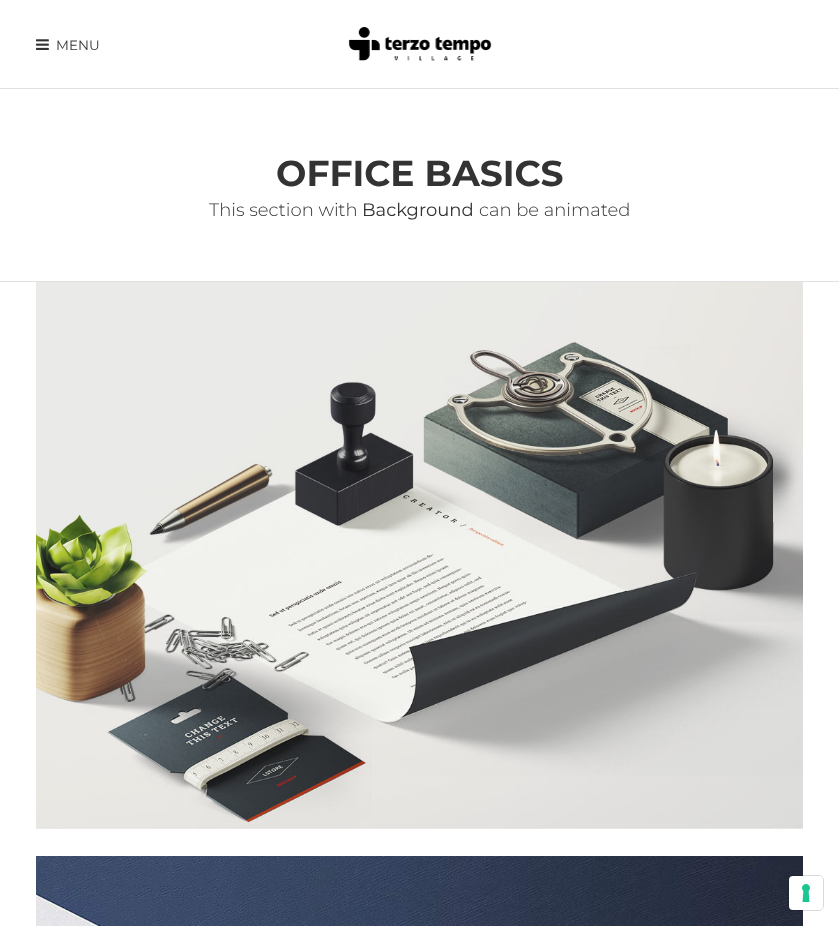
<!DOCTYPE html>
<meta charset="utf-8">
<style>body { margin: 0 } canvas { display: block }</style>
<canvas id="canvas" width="839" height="926"></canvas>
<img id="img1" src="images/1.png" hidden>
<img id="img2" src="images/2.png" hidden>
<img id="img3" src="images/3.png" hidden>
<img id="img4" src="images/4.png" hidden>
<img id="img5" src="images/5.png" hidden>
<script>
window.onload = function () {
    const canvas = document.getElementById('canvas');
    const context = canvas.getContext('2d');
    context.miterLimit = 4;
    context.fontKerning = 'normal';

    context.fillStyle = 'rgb(255, 255, 255)';
    context.fillRect(0, 0, 839, 926);
    context.fillStyle = 'rgb(225, 225, 225)';
    context.fillRect(0, 88, 839, 1);
    context.drawImage(document.getElementById('img1'), 36, 39, 13, 11);
    context.drawImage(document.getElementById('img2'), 348, 27, 144, 34);
    context.fillRect(0, 281, 839, 1);
    context.drawImage(document.getElementById('img3'), 36, 282, 767, 547);
    context.drawImage(document.getElementById('img4'), 36, 856, 767, 70);
    context.beginPath();
    context.roundRect(788.5, 875.5, 35, 35, 4.5);
    context.strokeStyle = 'rgba(0, 0, 0, 0.15)';
    context.stroke();
    context.fillStyle = 'rgb(255, 255, 255)';
    context.beginPath();
    context.roundRect(789, 876, 34, 34, 4);
    context.fill();
    context.drawImage(document.getElementById('img5'), 802, 884, 8, 18);
    context.font = '13.5px Montserrat';
    context.fillStyle = 'rgb(51, 51, 51)';
    context.fillText('MENU', 56, 50);
    context.font = 'bold 36px Montserrat';
    context.fillText('OFFICE BASICS', 276, 186);
    context.font = '300 18px Montserrat';
    context.fillText('This section with', 209, 216);
    context.font = '18px Montserrat';
    context.fillText('Background', 362, 216);
    context.font = '300 18px Montserrat';
    context.fillText('can be animated', 479, 216);
};
</script>
